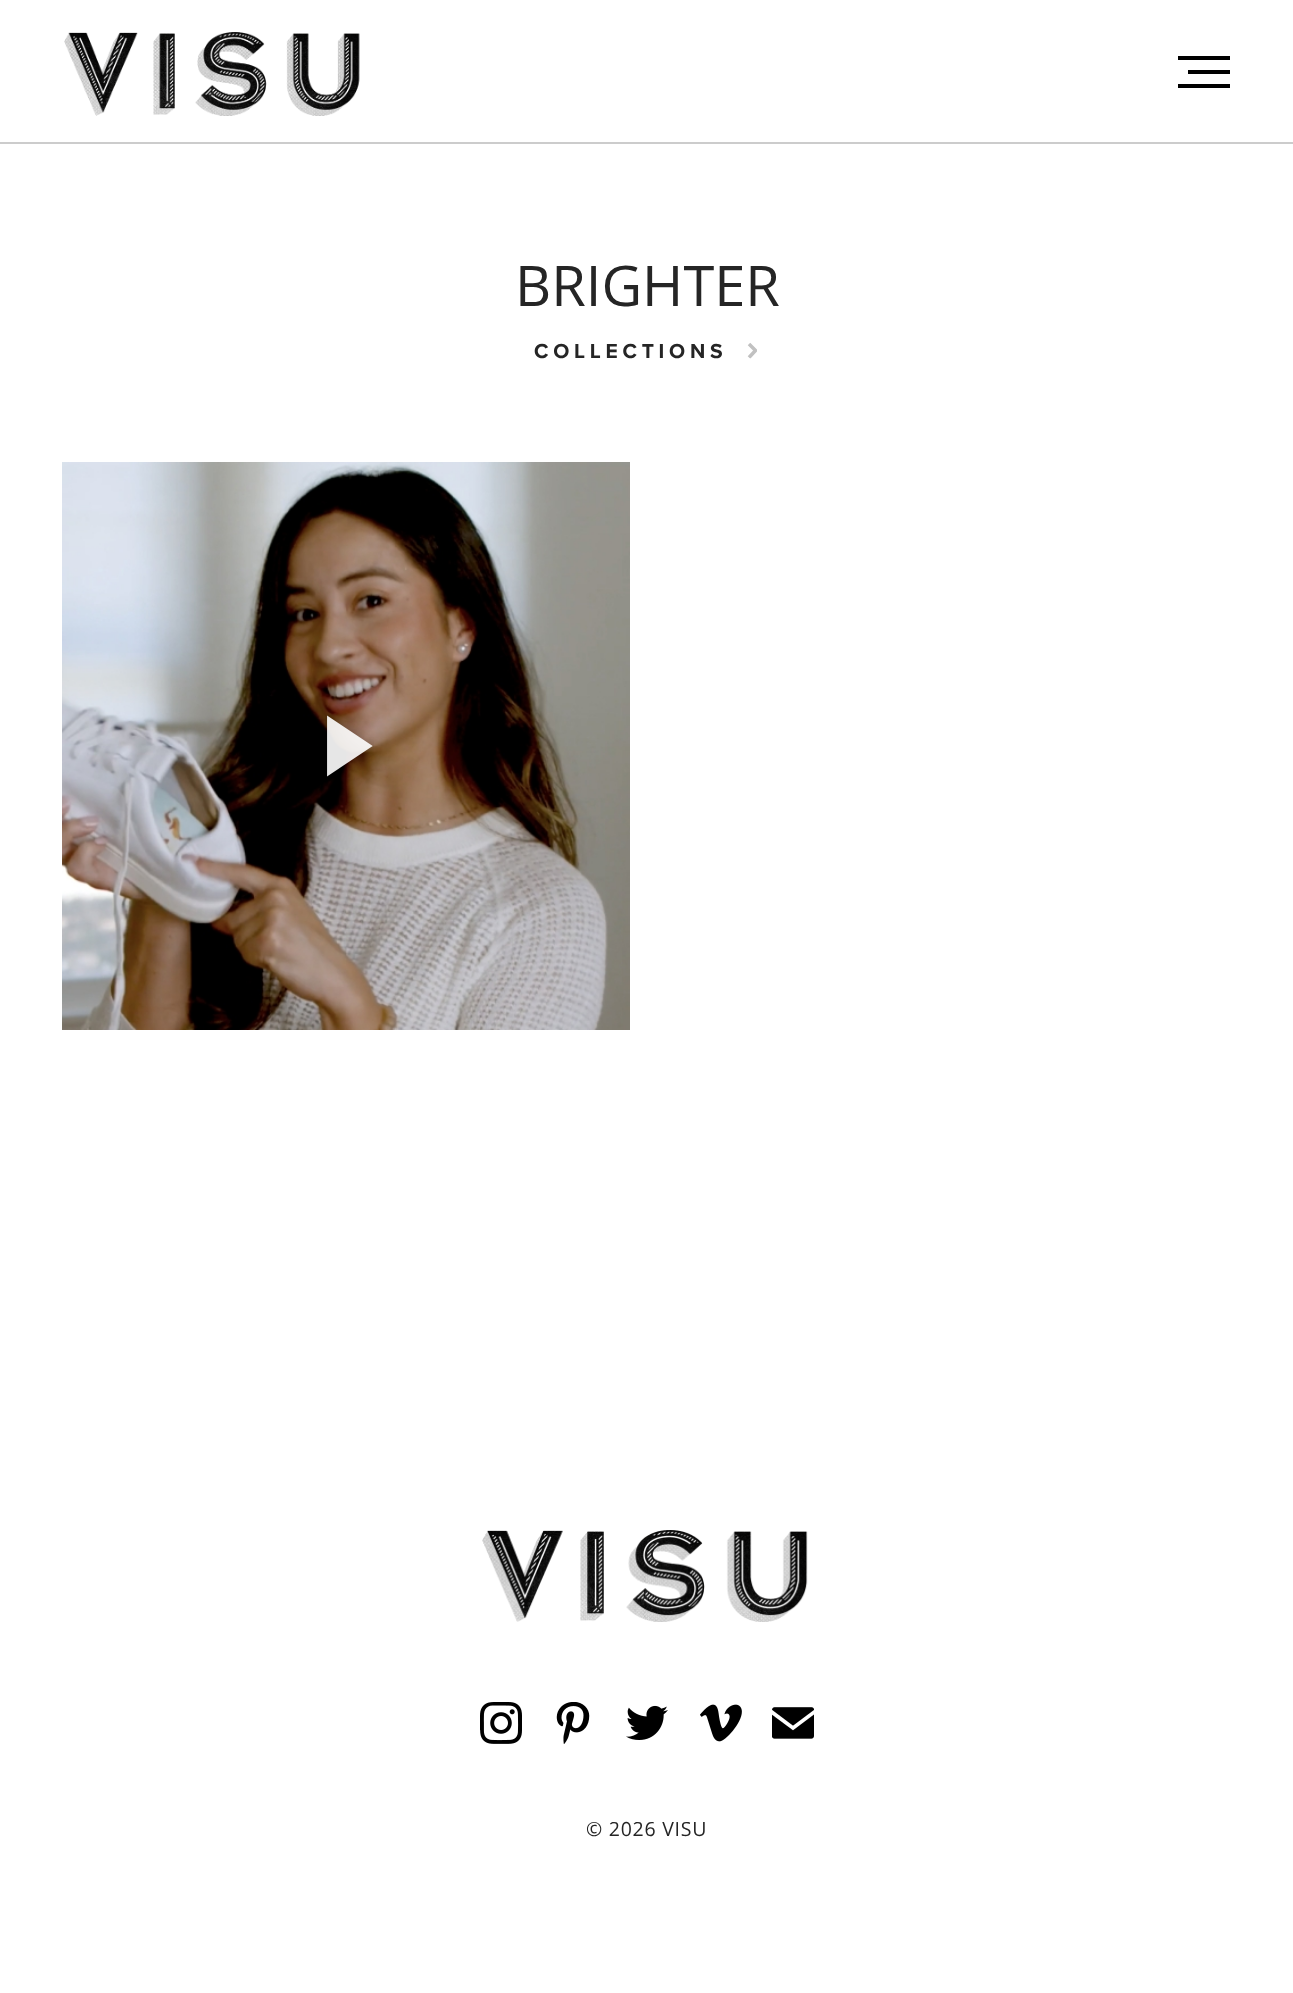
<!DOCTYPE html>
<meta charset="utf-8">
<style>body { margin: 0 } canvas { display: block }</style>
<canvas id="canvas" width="1293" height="1993"></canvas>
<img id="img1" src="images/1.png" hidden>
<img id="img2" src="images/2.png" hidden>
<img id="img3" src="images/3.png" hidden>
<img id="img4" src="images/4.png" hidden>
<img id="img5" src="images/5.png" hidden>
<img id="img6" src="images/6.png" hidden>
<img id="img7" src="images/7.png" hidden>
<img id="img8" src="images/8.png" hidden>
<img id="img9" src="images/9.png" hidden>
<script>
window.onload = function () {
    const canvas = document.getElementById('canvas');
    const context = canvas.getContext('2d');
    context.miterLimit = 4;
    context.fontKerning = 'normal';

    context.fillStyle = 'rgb(255, 255, 255)';
    context.fillRect(0, 0, 1293, 1993);
    context.fillStyle = 'rgb(204, 204, 204)';
    context.fillRect(0, 142, 1293, 2);
    context.drawImage(document.getElementById('img1'), 64, 32, 296, 84);
    context.fillStyle = 'rgb(0, 0, 0)';
    context.fillRect(1178, 56, 52, 4);
    context.fillRect(1188, 70, 42, 4);
    context.fillRect(1178, 84, 52, 4);
    context.save();
    context.beginPath();
    context.moveTo(747, 358.5);
    context.lineTo(747, 342.5);
    context.lineTo(757, 342.5);
    context.lineTo(757, 358.5);
    context.closePath();
    context.clip();
    context.beginPath();
    context.moveTo(749, 344);
    context.lineTo(755.5, 350.5);
    context.lineTo(749, 357.5);
    context.strokeStyle = 'rgb(193, 193, 193)';
    context.lineWidth = 3.5;
    context.stroke();
    context.restore();
    context.drawImage(document.getElementById('img2'), 62, 462, 568, 568);
    context.drawImage(document.getElementById('img3'), 325, 715, 49, 62);
    context.drawImage(document.getElementById('img4'), 482, 1530, 326, 92);
    context.drawImage(document.getElementById('img5'), 480, 1702, 42, 42);
    context.drawImage(document.getElementById('img6'), 556, 1702, 34, 42);
    context.drawImage(document.getElementById('img7'), 626, 1705, 42, 35);
    context.drawImage(document.getElementById('img8'), 700, 1704, 42, 38);
    context.drawImage(document.getElementById('img9'), 772, 1707, 42, 32);
    context.font = '56px Open Sans';
    context.fillStyle = 'rgb(37, 37, 37)';
    context.fillText('BRIGHTER', 515, 306);
    context.letterSpacing = '4.75px';
    context.font = 'bold 21px Proxima Nova';
    context.fillText('COLLECTIONS', 534, 358);
    context.letterSpacing = '0.75px';
    context.font = '19.5px Open Sans';
    context.fillText('© 2026 VISU', 586, 1836);
};
</script>
